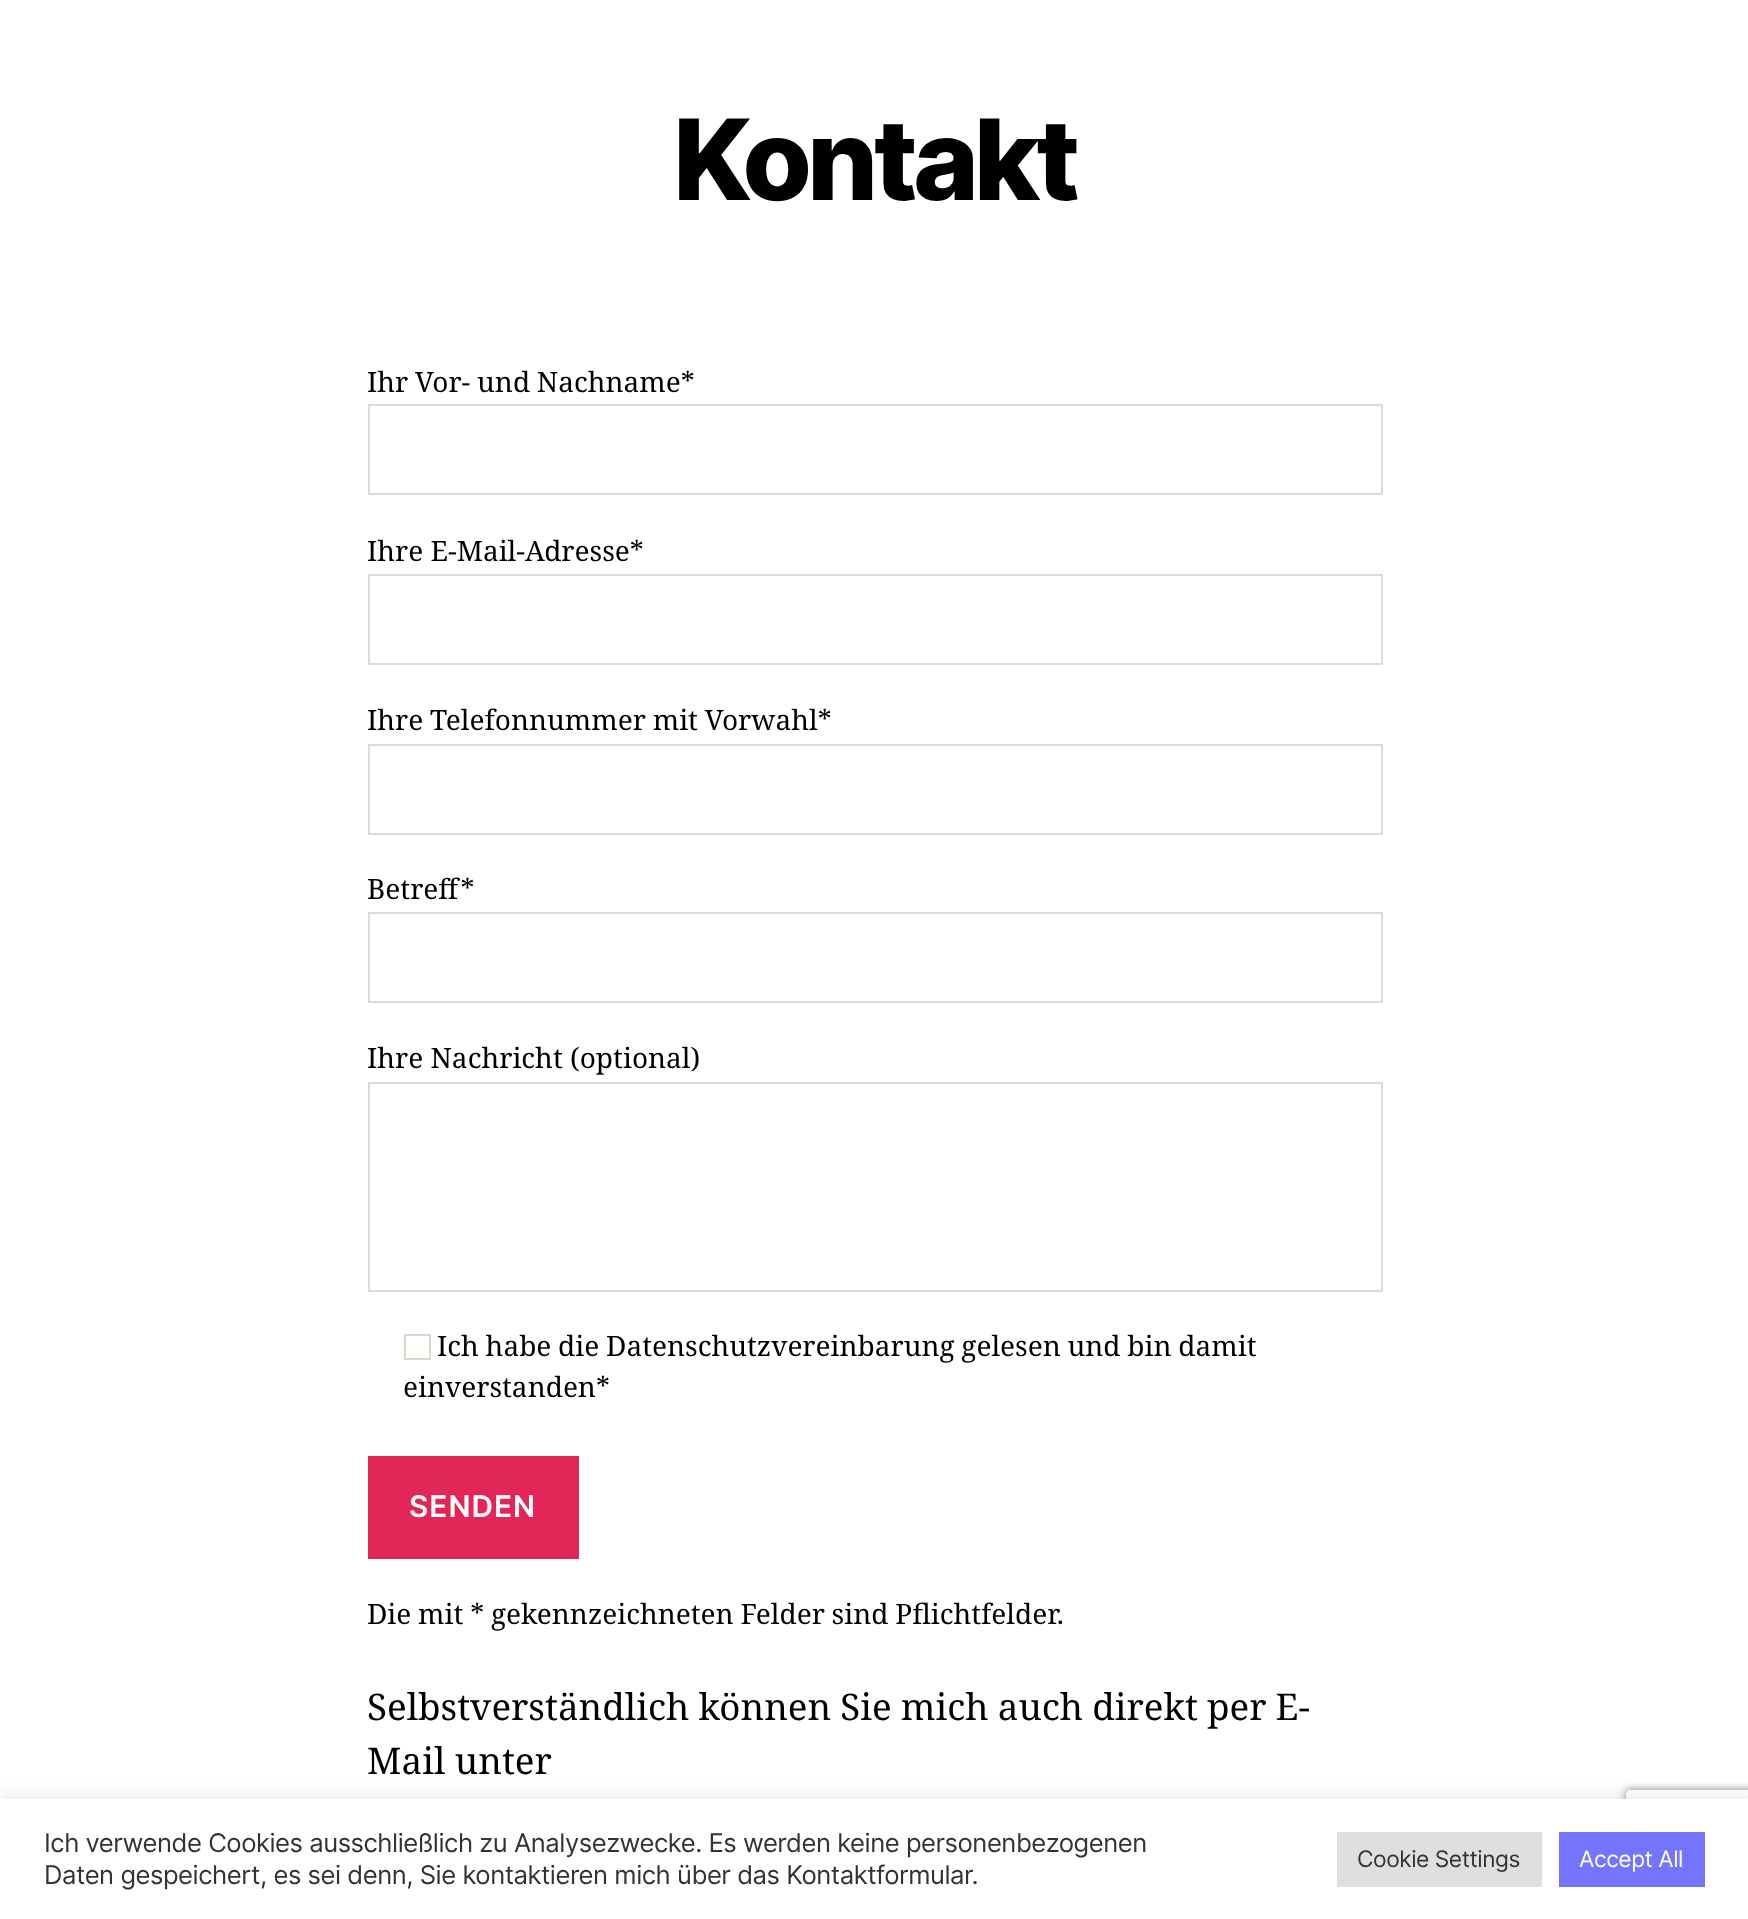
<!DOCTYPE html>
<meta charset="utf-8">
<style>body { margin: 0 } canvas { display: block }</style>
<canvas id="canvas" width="1748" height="1919"></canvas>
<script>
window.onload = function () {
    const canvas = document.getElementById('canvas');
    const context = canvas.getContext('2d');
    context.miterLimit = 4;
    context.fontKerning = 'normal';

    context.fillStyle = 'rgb(255, 255, 255)';
    context.fillRect(0, 0, 1748, 1919);
    context.strokeStyle = 'rgb(219, 219, 219)';
    context.lineWidth = 2;
    context.strokeRect(369, 405, 1013, 89);
    context.strokeRect(369, 575, 1013, 89);
    context.strokeRect(369, 745, 1013, 89);
    context.strokeRect(369, 913, 1013, 89);
    context.strokeRect(369, 1083, 1013, 208);
    context.strokeStyle = 'rgb(220, 215, 202)';
    context.strokeRect(405, 1335, 25, 24);
    context.fillStyle = 'rgb(226, 38, 88)';
    context.fillRect(368, 1456, 211, 103);
    context.save();
    context.beginPath();
    context.moveTo(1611, 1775);
    context.lineTo(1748, 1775);
    context.lineTo(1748, 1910);
    context.lineTo(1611, 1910);
    context.closePath();
    context.moveTo(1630, 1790);
    context.lineTo(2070, 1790);
    context.bezierCurveTo(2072, 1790, 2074, 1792, 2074, 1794);
    context.lineTo(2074, 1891);
    context.bezierCurveTo(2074, 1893, 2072, 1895, 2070, 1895);
    context.lineTo(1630, 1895);
    context.bezierCurveTo(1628, 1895, 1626, 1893, 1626, 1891);
    context.lineTo(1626, 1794);
    context.bezierCurveTo(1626, 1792, 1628, 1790, 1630, 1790);
    context.closePath();
    context.clip('evenodd');
    context.fillStyle = 'rgb(128, 128, 128)';
    context.filter = 'blur(4.5px)';
    context.beginPath();
    context.roundRect(1626, 1790, 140, 105, 4);
    context.fill();
    context.filter = 'none';
    context.restore();
    context.fillStyle = 'rgba(172, 171, 171, 0.3)';
    context.filter = 'blur(9px)';
    context.beginPath();
    context.rect(0, 1797, 1748, 121);
    context.fill();
    context.filter = 'none';
    context.fillStyle = 'rgb(255, 255, 255)';
    context.fillRect(0, 1799, 1748, 120);
    context.fillStyle = 'rgb(222, 223, 224)';
    context.fillRect(1337, 1832, 205, 55);
    context.fillStyle = 'rgb(117, 116, 254)';
    context.fillRect(1559, 1832, 146, 55);
    context.letterSpacing = '-4.75px';
    context.font = '800 112px Inter';
    context.fillStyle = 'rgb(0, 0, 0)';
    context.fillText('Kontakt', 673, 200);
    context.letterSpacing = '0px';
    context.wordSpacing = '-0.5px';
    context.font = '28px Noto Serif';
    context.fillText('Ihr Vor- und Nachname*', 367, 392);
    context.wordSpacing = '0px';
    context.fillText('Ihre E-Mail-Adresse*', 367, 561);
    context.wordSpacing = '-0.5px';
    context.fillText('Ihre Telefonnummer mit Vorwahl*', 367, 730);
    context.wordSpacing = '0px';
    context.fillText('Betreff*', 367, 899);
    context.fillText('Ihre Nachricht (optional)', 367, 1068);
    context.wordSpacing = '-0.5px';
    context.fillText('Ich habe die Datenschutzvereinbarung gelesen und bin damit', 437, 1356);
    context.wordSpacing = '0px';
    context.fillText('einverstanden*', 403, 1397);
    context.letterSpacing = '1px';
    context.font = '600 29.75px Inter';
    context.fillStyle = 'rgb(255, 255, 255)';
    context.fillText('SENDEN', 409, 1517);
    context.letterSpacing = '0px';
    context.wordSpacing = '-0.5px';
    context.font = '28px Noto Serif';
    context.fillStyle = 'rgb(0, 0, 0)';
    context.fillText('Die mit * gekennzeichneten Felder sind Pflichtfelder.', 367, 1624);
    context.font = '36.75px Noto Serif';
    context.fillText('Selbstverständlich können Sie mich auch direkt per E-', 367, 1720);
    context.wordSpacing = '0px';
    context.fillText('Mail unter', 367, 1774);
    context.letterSpacing = '-0.47px';
    context.font = '25.65px Inter';
    context.fillStyle = 'rgb(51, 51, 51)';
    context.fillText('Ich verwende Cookies ausschließlich zu Analysezwecke. Es werden keine personenbezogenen', 44, 1852);
    context.fillText('Daten gespeichert, es sei denn, Sie kontaktieren mich über das Kontaktformular.', 44, 1884);
    context.font = '22.75px Inter';
    context.fillText('Cookie Settings', 1357, 1867);
    context.fillStyle = 'rgb(255, 255, 255)';
    context.fillText('Accept All', 1579, 1867);
};
</script>
